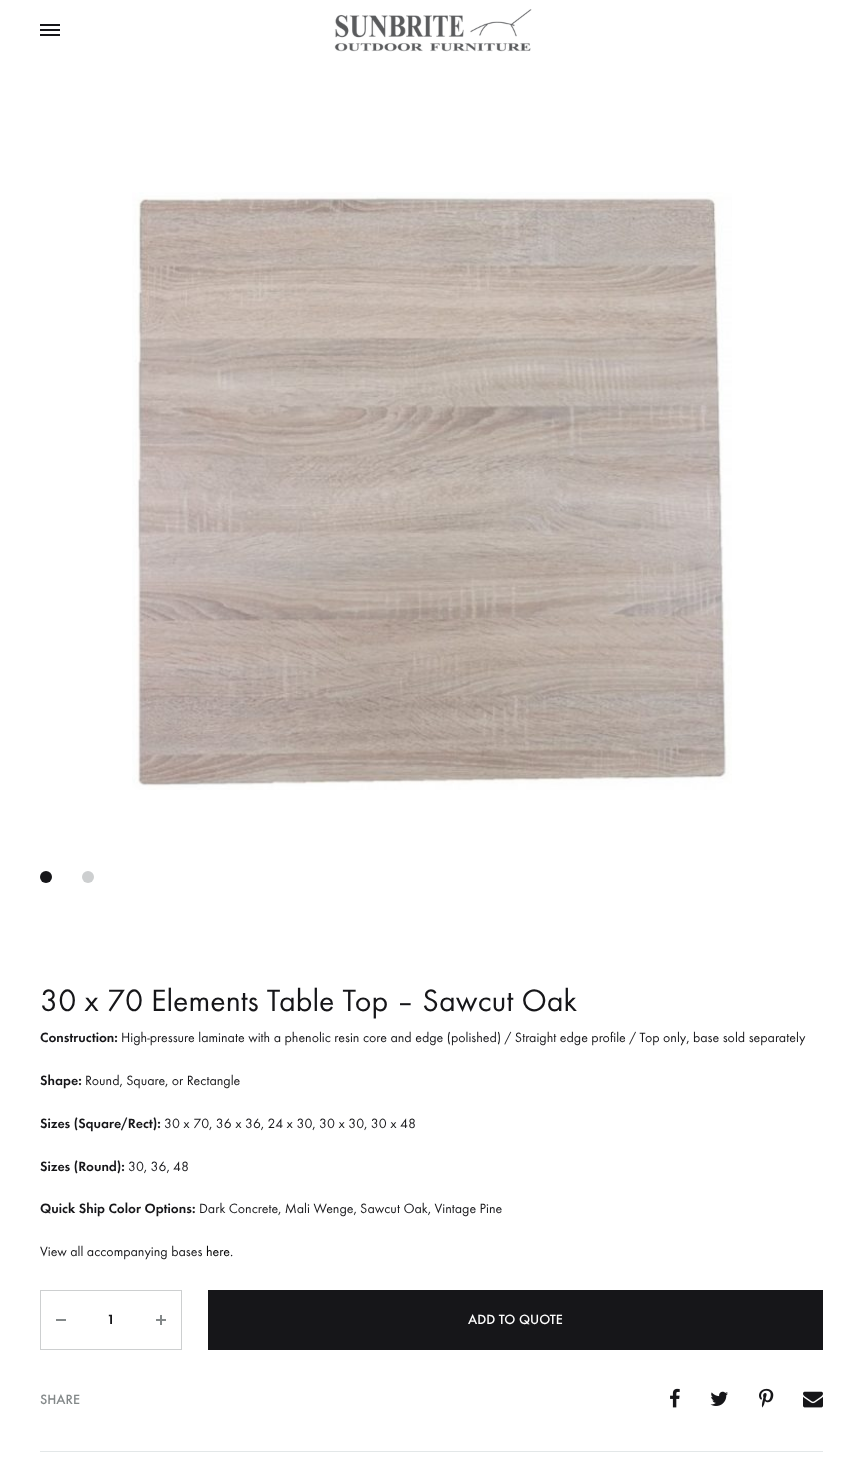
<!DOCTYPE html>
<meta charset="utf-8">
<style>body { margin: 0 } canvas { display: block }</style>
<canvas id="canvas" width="863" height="1468"></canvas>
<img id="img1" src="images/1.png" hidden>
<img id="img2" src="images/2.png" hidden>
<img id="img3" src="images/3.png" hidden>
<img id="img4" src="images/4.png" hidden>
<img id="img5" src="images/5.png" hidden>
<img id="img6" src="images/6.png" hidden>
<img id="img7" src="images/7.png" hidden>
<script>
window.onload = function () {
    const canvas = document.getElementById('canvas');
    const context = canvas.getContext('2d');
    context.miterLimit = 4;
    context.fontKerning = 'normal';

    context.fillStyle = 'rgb(255, 255, 255)';
    context.fillRect(0, 0, 863, 1468);
    context.fillStyle = 'rgb(22, 22, 25)';
    context.fillRect(40, 29, 20, 2);
    context.fillRect(40, 24, 20, 2);
    context.fillRect(40, 34, 20, 2);
    context.drawImage(document.getElementById('img1'), 334, 9, 198, 43);
    context.drawImage(document.getElementById('img2'), 132, 192, 600, 598);
    context.beginPath();
    context.arc(46, 877, 6, 0, 2 * Math.PI);
    context.fill();
    context.fillStyle = 'rgb(205, 207, 208)';
    context.beginPath();
    context.arc(88, 877, 6, 0, 2 * Math.PI);
    context.fill();
    context.strokeStyle = 'rgb(205, 207, 208)';
    context.strokeRect(40.5, 1290.5, 141, 59);
    context.fillStyle = 'rgb(131, 136, 137)';
    context.fillRect(56, 1319, 10, 2);
    context.drawImage(document.getElementById('img3'), 156, 1315, 10, 10);
    context.fillStyle = 'rgb(22, 22, 25)';
    context.fillRect(208, 1290, 615, 60);
    context.drawImage(document.getElementById('img4'), 670, 1388, 10, 20);
    context.drawImage(document.getElementById('img5'), 710, 1391, 18, 15);
    context.drawImage(document.getElementById('img6'), 759, 1388, 15, 20);
    context.drawImage(document.getElementById('img7'), 803, 1391, 20, 17);
    context.fillStyle = 'rgb(227, 231, 232)';
    context.fillRect(40, 1451, 783, 1);
    context.font = '32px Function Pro';
    context.fillStyle = 'rgb(22, 22, 25)';
    context.fillText('30 x 70 Elements Table Top – Sawcut Oak', 40, 1011);
    context.font = '600 14px Function Pro';
    context.fillText('Construction:', 40, 1042);
    context.font = '14px Function Pro';
    context.fillText('High-pressure laminate with a phenolic resin core and edge (polished) / Straight edge profile / Top only, base sold separately', 121, 1042);
    context.font = '600 14px Function Pro';
    context.fillText('Shape:', 40, 1085);
    context.font = '14px Function Pro';
    context.fillText('Round, Square, or Rectangle', 85, 1085);
    context.font = '600 14px Function Pro';
    context.fillText('Sizes (Square/Rect):', 40, 1128);
    context.font = '14px Function Pro';
    context.fillText('30 x 70, 36 x 36, 24 x 30, 30 x 30, 30 x 48', 164, 1128);
    context.font = '600 14px Function Pro';
    context.fillText('Sizes (Round):', 40, 1171);
    context.font = '14px Function Pro';
    context.fillText('30, 36, 48', 128, 1171);
    context.font = '600 14px Function Pro';
    context.fillText('Quick Ship Color Options:', 40, 1213);
    context.font = '14px Function Pro';
    context.fillText('Dark Concrete, Mali Wenge, Sawcut Oak, Vintage Pine', 199, 1213);
    context.fillText('View all accompanying bases', 40, 1256);
    context.fillStyle = 'rgb(0, 0, 0)';
    context.fillText('here', 206, 1256);
    context.fillStyle = 'rgb(22, 22, 25)';
    context.fillText('.', 230, 1256);
    context.font = '600 14px Function Pro';
    context.fillText('1', 107, 1324);
    context.font = '500 14px Function Pro';
    context.fillStyle = 'rgb(255, 255, 255)';
    context.fillText('ADD TO QUOTE', 468, 1324);
    context.fillStyle = 'rgb(131, 136, 137)';
    context.fillText('SHARE', 40, 1404);
};
</script>
